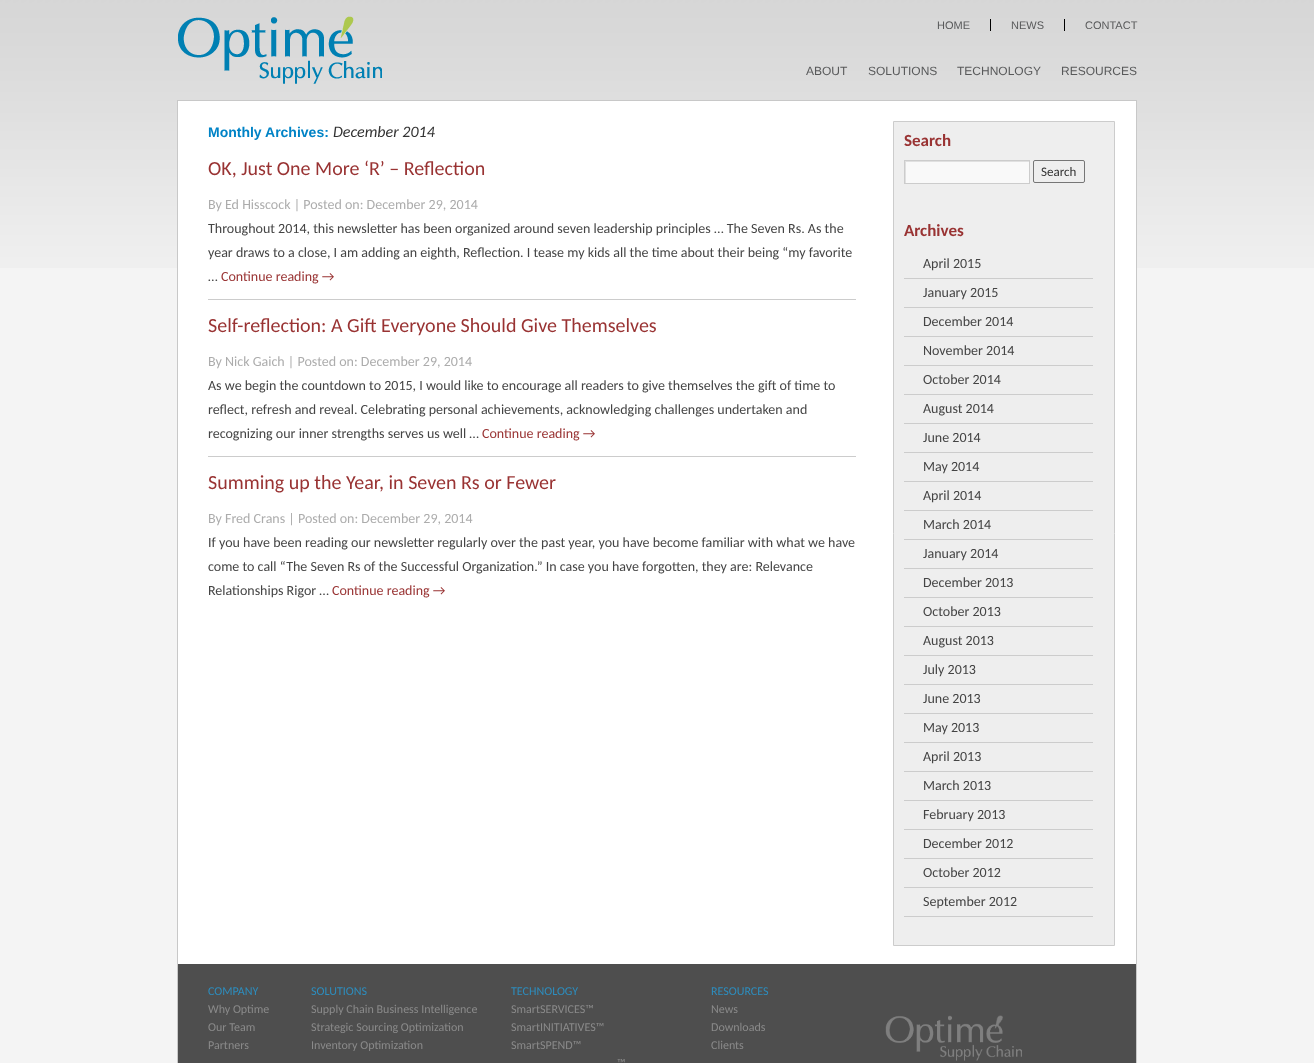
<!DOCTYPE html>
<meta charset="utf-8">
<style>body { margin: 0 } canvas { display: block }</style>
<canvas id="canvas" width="1314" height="1063"></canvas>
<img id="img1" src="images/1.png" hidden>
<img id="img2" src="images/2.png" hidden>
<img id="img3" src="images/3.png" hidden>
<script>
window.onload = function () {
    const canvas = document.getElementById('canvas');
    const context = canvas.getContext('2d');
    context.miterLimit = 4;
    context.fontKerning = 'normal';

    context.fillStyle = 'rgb(244, 244, 244)';
    context.fillRect(0, 0, 1314, 1063);
    context.drawImage(document.getElementById('img1'), 0, 0, 1314, 268);
    context.drawImage(document.getElementById('img2'), 178, 16, 204, 68);
    context.fillStyle = 'rgb(0, 0, 0)';
    context.fillRect(990, 19, 1, 12);
    context.fillRect(1064, 19, 1, 12);
    context.fillStyle = 'rgb(255, 255, 255)';
    context.fillRect(178, 101, 958, 863);
    context.strokeStyle = 'rgb(200, 200, 200)';
    context.strokeRect(177.5, 100.5, 959, 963);
    context.fillStyle = 'rgb(204, 204, 204)';
    context.fillRect(208, 299, 648, 1);
    context.fillRect(208, 456, 648, 1);
    context.fillStyle = 'rgb(238, 238, 238)';
    context.beginPath();
    context.rect(893.5, 121.5, 221, 824);
    context.fill();
    context.strokeStyle = 'rgb(204, 204, 204)';
    context.stroke();
    context.fillStyle = 'rgb(249, 249, 249)';
    context.fillRect(906, 162, 123, 21);
    context.save();
    context.beginPath();
    context.rect(905, 161, 124, 22);
    context.clip();
    context.fillStyle = 'rgb(224, 224, 224)';
    context.beginPath();
    context.moveTo(806, 62);
    context.lineTo(1128, 62);
    context.lineTo(1128, 282);
    context.lineTo(806, 282);
    context.closePath();
    context.moveTo(906, 162);
    context.lineTo(1030, 162);
    context.lineTo(1030, 184);
    context.lineTo(906, 184);
    context.closePath();
    context.fill('evenodd');
    context.restore();
    context.strokeRect(904.5, 160.5, 125, 23);
    context.beginPath();
    context.roundRect(1033.5, 160.5, 51, 22, 1.5);
    context.strokeStyle = 'rgb(118, 118, 118)';
    context.stroke();
    context.fillStyle = 'rgb(204, 204, 204)';
    context.fillRect(904, 278, 189, 1);
    context.fillRect(904, 307, 189, 1);
    context.fillRect(904, 336, 189, 1);
    context.fillRect(904, 365, 189, 1);
    context.fillRect(904, 394, 189, 1);
    context.fillRect(904, 423, 189, 1);
    context.fillRect(904, 452, 189, 1);
    context.fillRect(904, 481, 189, 1);
    context.fillRect(904, 510, 189, 1);
    context.fillRect(904, 539, 189, 1);
    context.fillRect(904, 568, 189, 1);
    context.fillRect(904, 597, 189, 1);
    context.fillRect(904, 626, 189, 1);
    context.fillRect(904, 655, 189, 1);
    context.fillRect(904, 684, 189, 1);
    context.fillRect(904, 713, 189, 1);
    context.fillRect(904, 742, 189, 1);
    context.fillRect(904, 771, 189, 1);
    context.fillRect(904, 800, 189, 1);
    context.fillRect(904, 829, 189, 1);
    context.fillRect(904, 858, 189, 1);
    context.fillRect(904, 887, 189, 1);
    context.fillRect(904, 916, 189, 1);
    context.fillStyle = 'rgb(78, 78, 78)';
    context.fillRect(178, 964, 958, 99);
    context.drawImage(document.getElementById('img3'), 885, 1015, 137, 46);
    context.font = '11px Liberation Sans';
    context.fillStyle = 'rgb(88, 89, 90)';
    context.fillText('HOME', 937, 29);
    context.fillText('NEWS', 1011, 29);
    context.fillText('CONTACT', 1085, 29);
    context.font = '12px Liberation Sans';
    context.fillText('ABOUT', 806, 75);
    context.fillText('SOLUTIONS', 868, 75);
    context.fillText('TECHNOLOGY', 957, 75);
    context.fillText('RESOURCES', 1061, 75);
    context.font = 'bold 14px Liberation Sans';
    context.fillStyle = 'rgb(0, 131, 198)';
    context.fillText('Monthly Archives:', 208, 137);
    context.font = 'italic 16px Carlito';
    context.fillStyle = 'rgb(51, 51, 51)';
    context.fillText('December 2014', 333, 137);
    context.font = '20px Carlito';
    context.fillStyle = 'rgb(153, 51, 51)';
    context.fillText('OK, Just One More ‘R’ – Reflection', 208, 175);
    context.font = '14px Carlito';
    context.fillStyle = 'rgb(172, 172, 172)';
    context.fillText('By Ed Hisscock | Posted on: December 29, 2014', 208, 209);
    context.fillStyle = 'rgb(68, 68, 68)';
    context.fillText('Throughout 2014, this newsletter has been organized around seven leadership principles … The Seven Rs. As the', 208, 233);
    context.fillText('year draws to a close, I am adding an eighth, Reflection. I tease my kids all the time about their being “my favorite', 208, 257);
    context.fillText('…', 208, 281);
    context.fillStyle = 'rgb(153, 51, 51)';
    context.fillText('Continue reading →', 221, 281);
    context.font = '20px Carlito';
    context.fillText('Self-reflection: A Gift Everyone Should Give Themselves', 208, 332);
    context.font = '14px Carlito';
    context.fillStyle = 'rgb(172, 172, 172)';
    context.fillText('By Nick Gaich | Posted on: December 29, 2014', 208, 366);
    context.fillStyle = 'rgb(68, 68, 68)';
    context.fillText('As we begin the countdown to 2015, I would like to encourage all readers to give themselves the gift of time to', 208, 390);
    context.fillText('reflect, refresh and reveal. Celebrating personal achievements, acknowledging challenges undertaken and', 208, 414);
    context.fillText('recognizing our inner strengths serves us well …', 208, 438);
    context.fillStyle = 'rgb(153, 51, 51)';
    context.fillText('Continue reading →', 482, 438);
    context.font = '20px Carlito';
    context.fillText('Summing up the Year, in Seven Rs or Fewer', 208, 489);
    context.font = '14px Carlito';
    context.fillStyle = 'rgb(172, 172, 172)';
    context.fillText('By Fred Crans | Posted on: December 29, 2014', 208, 523);
    context.fillStyle = 'rgb(68, 68, 68)';
    context.fillText('If you have been reading our newsletter regularly over the past year, you have become familiar with what we have', 208, 547);
    context.fillText('come to call “The Seven Rs of the Successful Organization.” In case you have forgotten, they are: Relevance', 208, 571);
    context.fillText('Relationships Rigor …', 208, 595);
    context.fillStyle = 'rgb(153, 51, 51)';
    context.fillText('Continue reading →', 332, 595);
    context.font = 'bold 17px Carlito';
    context.fillText('Search', 904, 146);
    context.font = '13px Carlito';
    context.fillStyle = 'rgb(51, 51, 51)';
    context.fillText('Search', 1041, 176);
    context.font = 'bold 17px Carlito';
    context.fillStyle = 'rgb(153, 51, 51)';
    context.fillText('Archives', 904, 236);
    context.font = '14px Carlito';
    context.fillStyle = 'rgb(68, 68, 68)';
    context.fillText('April 2015', 923, 268);
    context.fillText('January 2015', 923, 297);
    context.fillText('December 2014', 923, 326);
    context.fillText('November 2014', 923, 355);
    context.fillText('October 2014', 923, 384);
    context.fillText('August 2014', 923, 413);
    context.fillText('June 2014', 923, 442);
    context.fillText('May 2014', 923, 471);
    context.fillText('April 2014', 923, 500);
    context.fillText('March 2014', 923, 529);
    context.fillText('January 2014', 923, 558);
    context.fillText('December 2013', 923, 587);
    context.fillText('October 2013', 923, 616);
    context.fillText('August 2013', 923, 645);
    context.fillText('July 2013', 923, 674);
    context.fillText('June 2013', 923, 703);
    context.fillText('May 2013', 923, 732);
    context.fillText('April 2013', 923, 761);
    context.fillText('March 2013', 923, 790);
    context.fillText('February 2013', 923, 819);
    context.fillText('December 2012', 923, 848);
    context.fillText('October 2012', 923, 877);
    context.fillText('September 2012', 923, 906);
    context.font = '12px Carlito';
    context.fillStyle = 'rgb(45, 141, 190)';
    context.fillText('COMPANY', 208, 995);
    context.fillStyle = 'rgb(138, 138, 138)';
    context.fillText('Why Optime', 208, 1013);
    context.fillText('Our Team', 208, 1031);
    context.fillText('Partners', 208, 1049);
    context.fillStyle = 'rgb(45, 141, 190)';
    context.fillText('SOLUTIONS', 311, 995);
    context.fillStyle = 'rgb(138, 138, 138)';
    context.fillText('Supply Chain Business Intelligence', 311, 1013);
    context.fillText('Strategic Sourcing Optimization', 311, 1031);
    context.fillText('Inventory Optimization', 311, 1049);
    context.fillStyle = 'rgb(45, 141, 190)';
    context.fillText('TECHNOLOGY', 511, 995);
    context.fillStyle = 'rgb(138, 138, 138)';
    context.fillText('SmartSERVICES™', 511, 1013);
    context.fillText('SmartINITIATIVES™', 511, 1031);
    context.fillText('SmartSPEND™', 511, 1049);
    context.fillText('™', 617, 1067);
    context.fillStyle = 'rgb(45, 141, 190)';
    context.fillText('RESOURCES', 711, 995);
    context.fillStyle = 'rgb(138, 138, 138)';
    context.fillText('News', 711, 1013);
    context.fillText('Downloads', 711, 1031);
    context.fillText('Clients', 711, 1049);
};
</script>
